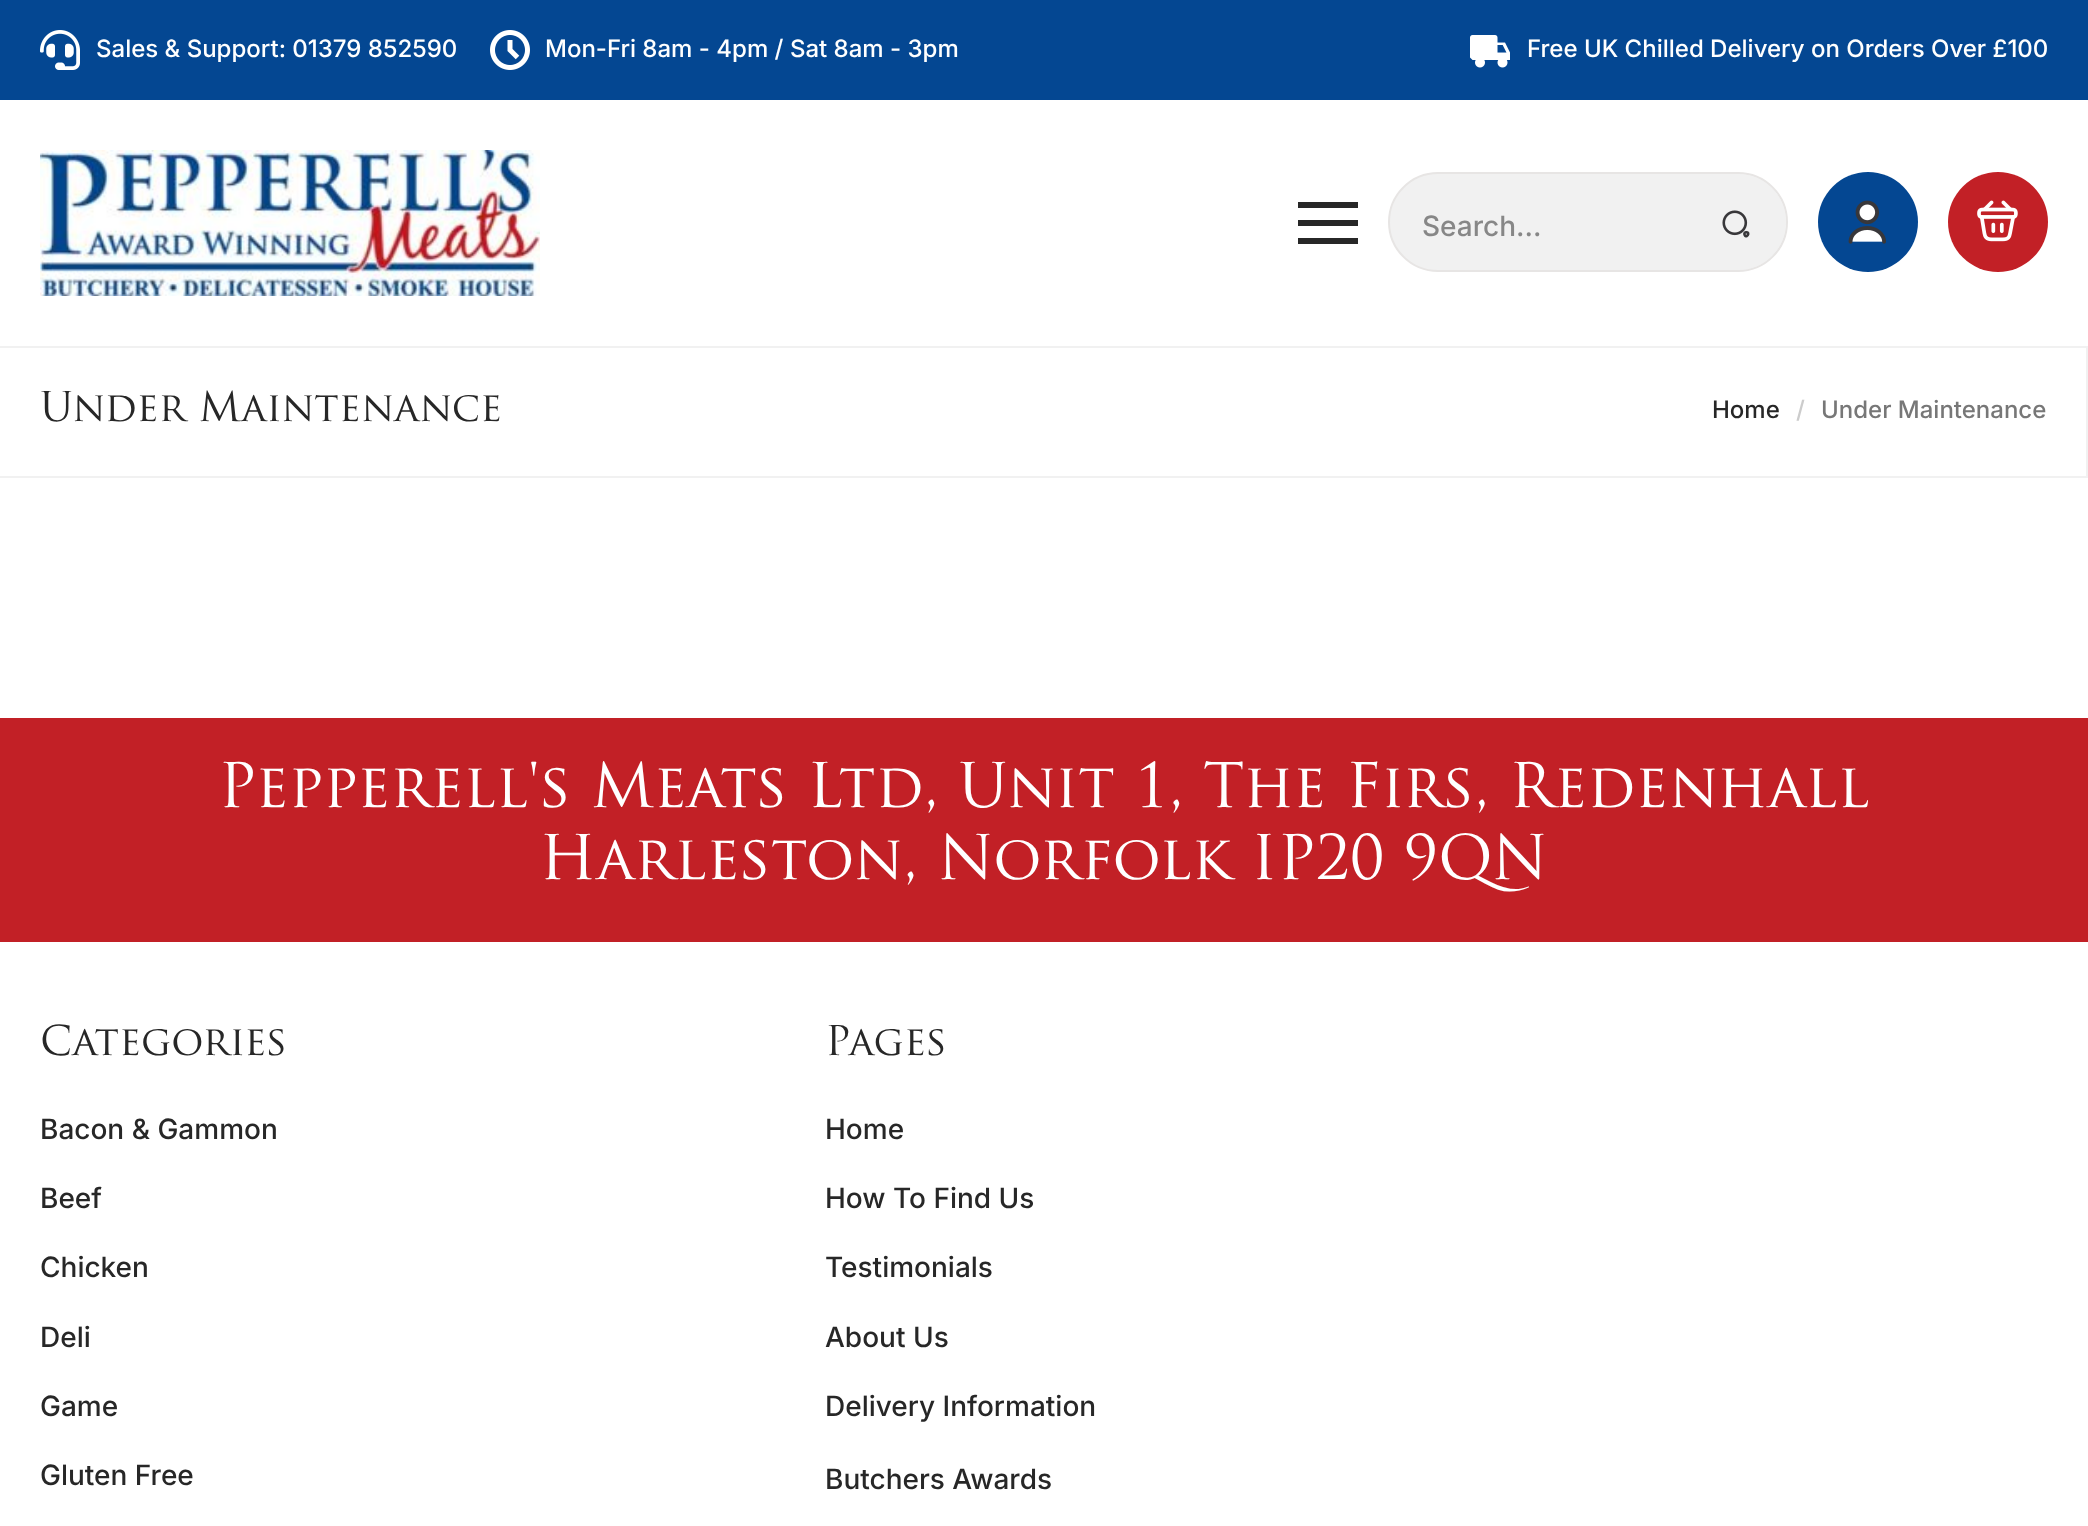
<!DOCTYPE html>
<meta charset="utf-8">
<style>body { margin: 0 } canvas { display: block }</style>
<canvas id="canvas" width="2088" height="1526"></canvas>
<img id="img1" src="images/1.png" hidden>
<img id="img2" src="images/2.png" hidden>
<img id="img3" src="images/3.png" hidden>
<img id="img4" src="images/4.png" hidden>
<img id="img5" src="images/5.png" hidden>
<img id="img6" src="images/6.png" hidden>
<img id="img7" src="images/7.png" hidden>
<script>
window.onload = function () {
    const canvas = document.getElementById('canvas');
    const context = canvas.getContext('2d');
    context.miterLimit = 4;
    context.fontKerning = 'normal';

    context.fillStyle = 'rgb(255, 255, 255)';
    context.fillRect(0, 0, 2088, 1526);
    context.fillStyle = 'rgb(4, 71, 146)';
    context.fillRect(0, 0, 2088, 100);
    context.drawImage(document.getElementById('img1'), 40, 30, 40, 40);
    context.drawImage(document.getElementById('img2'), 490, 30, 40, 40);
    context.drawImage(document.getElementById('img3'), 1470, 35, 40, 33);
    context.drawImage(document.getElementById('img4'), 40, 150, 500, 146);
    context.fillStyle = 'rgb(39, 39, 39)';
    context.fillRect(1298, 220, 60, 6);
    context.fillRect(1298, 202, 60, 6);
    context.fillRect(1298, 238, 60, 6);
    context.fillStyle = 'rgb(241, 241, 241)';
    context.beginPath();
    context.roundRect(1389, 173, 398, 98, 49);
    context.fill();
    context.strokeStyle = 'rgb(231, 229, 228)';
    context.lineWidth = 2;
    context.stroke();
    context.beginPath();
    context.roundRect(1686, 174, 100, 96, [0, 48, 48, 0]);
    context.fill();
    context.drawImage(document.getElementById('img5'), 1722, 210, 28, 28);
    context.fillStyle = 'rgb(4, 71, 146)';
    context.beginPath();
    context.arc(1868, 222, 50, 0, 2 * Math.PI);
    context.fill();
    context.drawImage(document.getElementById('img6'), 1848, 200, 38, 44);
    context.fillStyle = 'rgb(194, 32, 38)';
    context.beginPath();
    context.arc(1998, 222, 50, 0, 2 * Math.PI);
    context.fill();
    context.drawImage(document.getElementById('img7'), 1977, 200, 41, 42);
    context.fillStyle = 'rgb(241, 241, 241)';
    context.fillRect(0, 346, 2088, 2);
    context.fillRect(2086, 346, 2, 132);
    context.fillRect(0, 476, 2088, 2);
    context.fillStyle = 'rgb(194, 32, 38)';
    context.fillRect(0, 718, 2088, 224);
    context.font = '500 24px Inter';
    context.fillStyle = 'rgb(255, 255, 255)';
    context.fillText('Sales & Support: 01379 852590', 96, 57);
    context.fillText('Mon-Fri 8am - 4pm / Sat 8am - 3pm', 545, 57);
    context.fillText('Free UK Chilled Delivery on Orders Over £100', 1527, 57);
    context.font = '500 28px Inter';
    context.fillStyle = 'rgb(135, 135, 135)';
    context.fillText('Search...', 1422, 236);
    context.font = '40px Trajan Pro';
    context.fillStyle = 'rgb(39, 39, 39)';
    context.fillText('Under Maintenance', 40, 421);
    context.font = '500 24px Inter';
    context.fillText('Home', 1712, 418);
    context.fillStyle = 'rgb(204, 204, 204)';
    context.fillText('/', 1796, 418);
    context.fillStyle = 'rgb(119, 119, 119)';
    context.fillText('Under Maintenance', 1821, 418);
    context.font = '60px Trajan Pro';
    context.fillStyle = 'rgb(255, 255, 255)';
    context.fillText('Pepperell\'s Meats Ltd, Unit 1, The Firs, Redenhall', 218, 807);
    context.fillText('Harleston, Norfolk IP20 9QN', 539, 879);
    context.font = '40px Trajan Pro';
    context.fillStyle = 'rgb(39, 39, 39)';
    context.fillText('Categories', 40, 1055);
    context.font = '500 28px Inter';
    context.fillText('Bacon & Gammon', 40, 1139);
    context.fillText('Beef', 40, 1208);
    context.fillText('Chicken', 40, 1277);
    context.fillText('Deli', 40, 1347);
    context.fillText('Game', 40, 1416);
    context.fillText('Gluten Free', 40, 1485);
    context.font = '40px Trajan Pro';
    context.fillText('Pages', 825, 1055);
    context.font = '500 28px Inter';
    context.fillText('Home', 825, 1139);
    context.fillText('How To Find Us', 825, 1208);
    context.fillText('Testimonials', 825, 1277);
    context.fillText('About Us', 825, 1347);
    context.fillText('Delivery Information', 825, 1416);
    context.fillText('Butchers Awards', 825, 1489);
};
</script>
